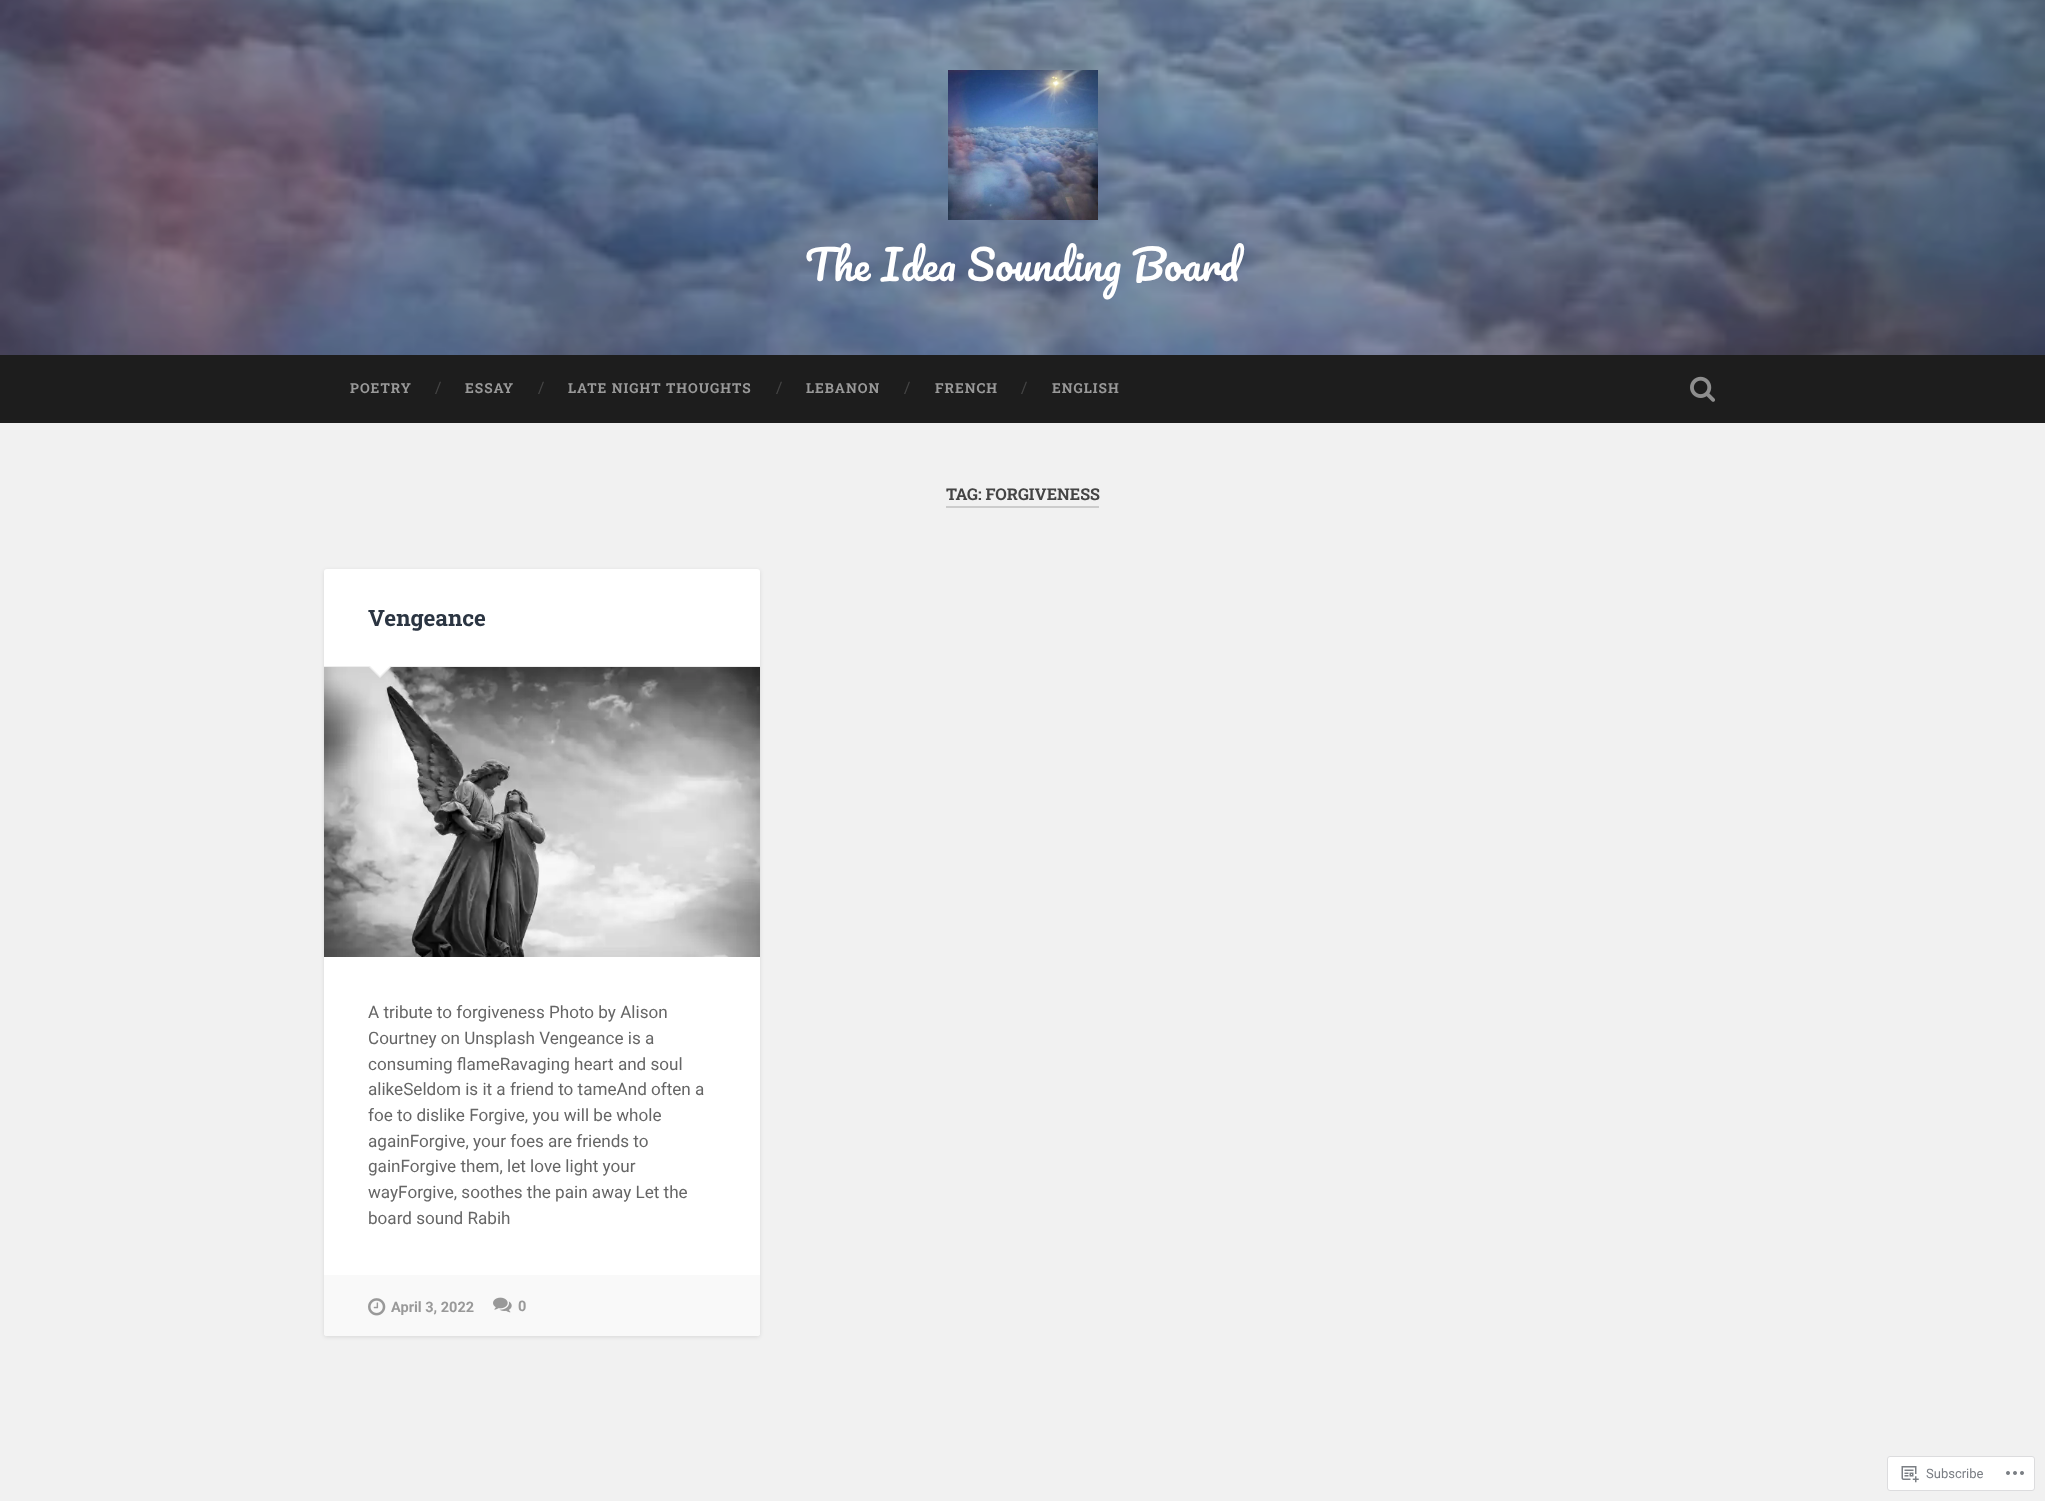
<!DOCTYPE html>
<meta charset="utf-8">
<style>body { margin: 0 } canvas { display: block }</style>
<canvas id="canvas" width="2045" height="1501"></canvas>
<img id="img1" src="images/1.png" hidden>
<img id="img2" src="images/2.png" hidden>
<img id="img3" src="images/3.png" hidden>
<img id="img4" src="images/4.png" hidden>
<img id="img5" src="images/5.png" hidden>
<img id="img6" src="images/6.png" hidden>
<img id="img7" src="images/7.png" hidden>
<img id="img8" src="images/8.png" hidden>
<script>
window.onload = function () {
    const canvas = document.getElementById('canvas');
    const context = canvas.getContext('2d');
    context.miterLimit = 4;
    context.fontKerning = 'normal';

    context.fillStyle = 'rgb(241, 241, 241)';
    context.fillRect(0, 0, 2045, 1501);
    context.drawImage(document.getElementById('img1'), 0, 0, 2045, 355);
    context.drawImage(document.getElementById('img2'), 948, 70, 150, 150);
    context.fillStyle = 'rgb(29, 29, 29)';
    context.fillRect(0, 355, 2045, 68);
    context.drawImage(document.getElementById('img3'), 1690, 376, 25, 26);
    context.fillStyle = 'rgb(204, 204, 204)';
    context.fillRect(946, 506, 153, 2);
    context.fillStyle = 'rgba(0, 0, 0, 0.1)';
    context.filter = 'blur(2px)';
    context.beginPath();
    context.roundRect(324, 570, 436, 767, 3);
    context.fill();
    context.filter = 'none';
    context.fillStyle = 'rgb(255, 255, 255)';
    context.beginPath();
    context.roundRect(324, 569, 436, 767, 3);
    context.fill();
    context.fillStyle = 'rgb(238, 238, 238)';
    context.fillRect(324, 666, 436, 1);
    context.drawImage(document.getElementById('img4'), 324, 667, 436, 290);
    context.beginPath();
    context.moveTo(368, 666);
    context.lineTo(392, 666);
    context.lineTo(380, 678);
    context.closePath();
    context.fill();
    context.fillStyle = 'rgb(255, 255, 255)';
    context.beginPath();
    context.moveTo(369, 665);
    context.lineTo(391, 665);
    context.lineTo(380, 676);
    context.closePath();
    context.fill();
    context.fillStyle = 'rgb(249, 249, 249)';
    context.beginPath();
    context.roundRect(324, 1275, 436, 61, [0, 0, 3, 3]);
    context.fill();
    context.drawImage(document.getElementById('img5'), 368, 1298, 18, 18);
    context.drawImage(document.getElementById('img6'), 493, 1297, 19, 16);
    context.fillStyle = 'rgb(255, 255, 255)';
    context.beginPath();
    context.roundRect(1887.5, 1456.5, 147, 34, 2.5);
    context.fill();
    context.strokeStyle = 'rgb(220, 220, 222)';
    context.stroke();
    context.drawImage(document.getElementById('img7'), 1901, 1466, 18, 17);
    context.drawImage(document.getElementById('img8'), 2006, 1471, 18, 4);
    context.font = '40.5px Pacifico';
    context.fillText('The Idea Sounding Board', 805, 281);
    context.letterSpacing = '1px';
    context.font = 'bold 13.75px Roboto Slab';
    context.fillStyle = 'rgb(153, 153, 153)';
    context.fillText('POETRY', 350, 393);
    context.letterSpacing = '0px';
    context.font = '16px Roboto Slab';
    context.fillStyle = 'rgb(68, 68, 68)';
    context.fillText('/', 435, 393);
    context.letterSpacing = '1px';
    context.font = 'bold 13.75px Roboto Slab';
    context.fillStyle = 'rgb(153, 153, 153)';
    context.fillText('ESSAY', 465, 393);
    context.letterSpacing = '0px';
    context.font = '16px Roboto Slab';
    context.fillStyle = 'rgb(68, 68, 68)';
    context.fillText('/', 538, 393);
    context.letterSpacing = '1px';
    context.font = 'bold 13.75px Roboto Slab';
    context.fillStyle = 'rgb(153, 153, 153)';
    context.fillText('LATE NIGHT THOUGHTS', 568, 393);
    context.letterSpacing = '0px';
    context.font = '16px Roboto Slab';
    context.fillStyle = 'rgb(68, 68, 68)';
    context.fillText('/', 776, 393);
    context.letterSpacing = '1px';
    context.font = 'bold 13.75px Roboto Slab';
    context.fillStyle = 'rgb(153, 153, 153)';
    context.fillText('LEBANON', 806, 393);
    context.letterSpacing = '0px';
    context.font = '16px Roboto Slab';
    context.fillStyle = 'rgb(68, 68, 68)';
    context.fillText('/', 904, 393);
    context.letterSpacing = '1px';
    context.font = 'bold 13.75px Roboto Slab';
    context.fillStyle = 'rgb(153, 153, 153)';
    context.fillText('FRENCH', 935, 393);
    context.letterSpacing = '0px';
    context.font = '16px Roboto Slab';
    context.fillStyle = 'rgb(68, 68, 68)';
    context.fillText('/', 1021, 393);
    context.letterSpacing = '1px';
    context.font = 'bold 13.75px Roboto Slab';
    context.fillStyle = 'rgb(153, 153, 153)';
    context.fillText('ENGLISH', 1052, 393);
    context.letterSpacing = '0px';
    context.font = 'bold 16.25px Roboto Slab';
    context.fillStyle = 'rgb(68, 68, 68)';
    context.fillText('TAG: FORGIVENESS', 946, 500);
    context.font = 'bold 22.5px Roboto Slab';
    context.fillStyle = 'rgb(43, 53, 66)';
    context.fillText('Vengeance', 368, 626);
    context.font = '17.1px Roboto';
    context.fillStyle = 'rgb(102, 102, 102)';
    context.fillText('A tribute to forgiveness Photo by Alison', 368, 1018);
    context.fillText('Courtney on Unsplash Vengeance is a', 368, 1044);
    context.fillText('consuming flameRavaging heart and soul', 368, 1070);
    context.fillText('alikeSeldom is it a friend to tameAnd often a', 368, 1095);
    context.fillText('foe to dislike Forgive, you will be whole', 368, 1121);
    context.fillText('againForgive, your foes are friends to', 368, 1147);
    context.fillText('gainForgive them, let love light your', 368, 1172);
    context.fillText('wayForgive, soothes the pain away Let the', 368, 1198);
    context.fillText('board sound Rabih', 368, 1224);
    context.font = 'bold 14.5px Roboto';
    context.fillStyle = 'rgb(153, 153, 153)';
    context.fillText('April 3, 2022', 391, 1312);
    context.fillText('0', 518, 1311);
    context.font = '13px Roboto';
    context.fillStyle = 'rgb(122, 126, 132)';
    context.fillText('Subscribe', 1926, 1478);
};
</script>
